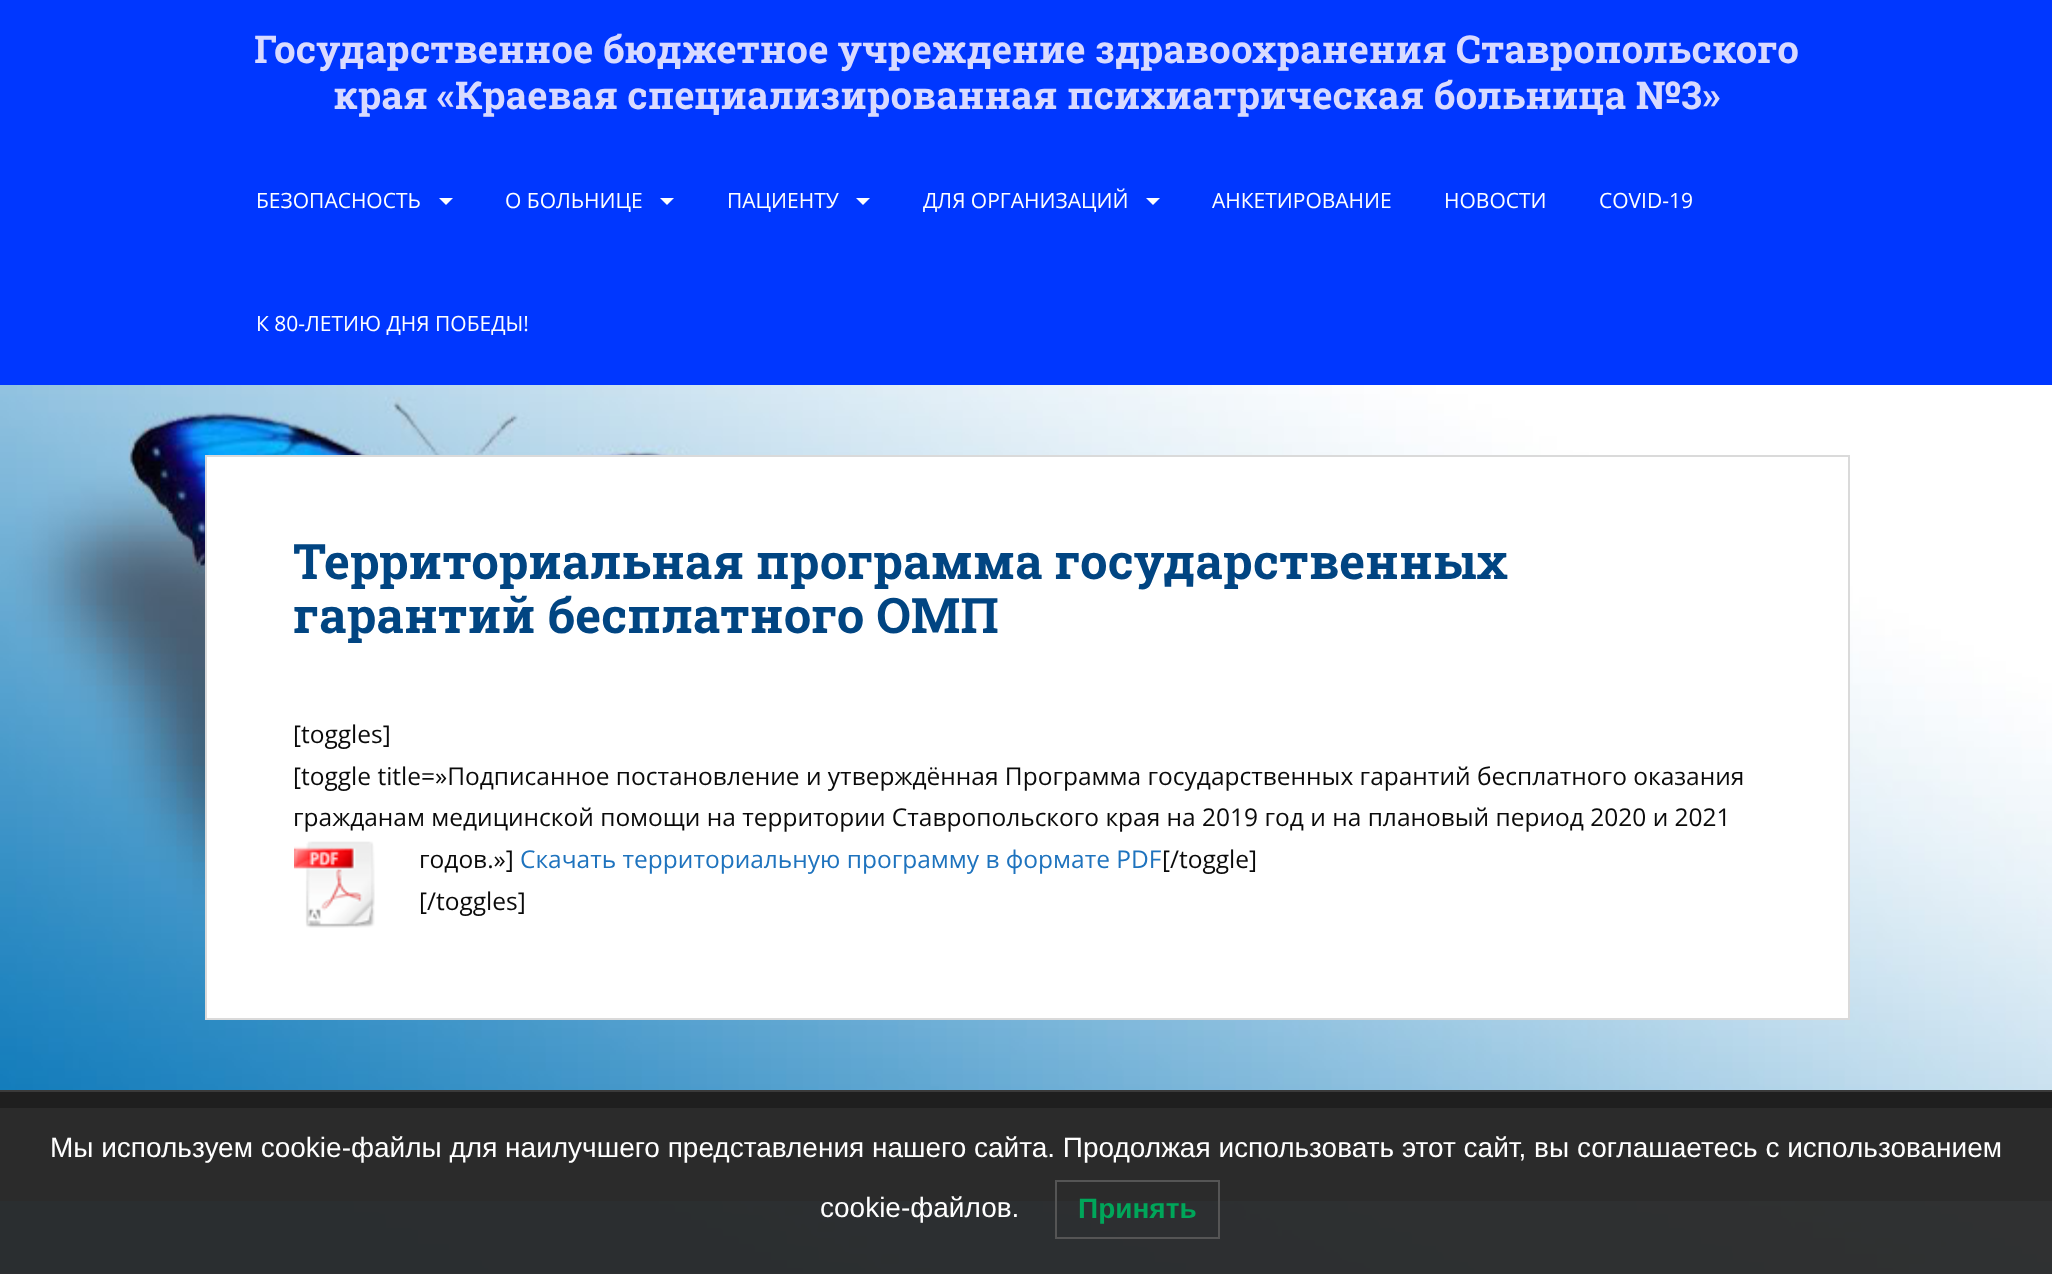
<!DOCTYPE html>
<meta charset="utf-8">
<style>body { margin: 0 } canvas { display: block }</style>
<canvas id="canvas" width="2052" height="1274"></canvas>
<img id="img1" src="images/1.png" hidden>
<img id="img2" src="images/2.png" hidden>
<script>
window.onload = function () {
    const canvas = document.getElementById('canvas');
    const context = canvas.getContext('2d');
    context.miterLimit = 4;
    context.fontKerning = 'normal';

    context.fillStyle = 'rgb(255, 255, 255)';
    context.fillRect(0, 0, 2052, 1274);
    context.drawImage(document.getElementById('img1'), 0, 385, 2052, 889);
    context.fillStyle = 'rgb(0, 55, 255)';
    context.fillRect(0, 0, 2052, 385);
    context.fillStyle = 'rgb(255, 255, 255)';
    context.beginPath();
    context.moveTo(439, 198);
    context.lineTo(453, 198);
    context.lineTo(446, 205);
    context.closePath();
    context.fill();
    context.beginPath();
    context.moveTo(660, 198);
    context.lineTo(674, 198);
    context.lineTo(667, 205);
    context.closePath();
    context.fill();
    context.beginPath();
    context.moveTo(856, 198);
    context.lineTo(870, 198);
    context.lineTo(863, 205);
    context.closePath();
    context.fill();
    context.beginPath();
    context.moveTo(1146, 198);
    context.lineTo(1160, 198);
    context.lineTo(1153, 205);
    context.closePath();
    context.fill();
    context.beginPath();
    context.rect(206, 456, 1643, 563);
    context.fill();
    context.strokeStyle = 'rgb(218, 218, 218)';
    context.lineWidth = 2;
    context.stroke();
    context.drawImage(document.getElementById('img2'), 294, 841, 81, 87);
    context.fillStyle = 'rgb(31, 31, 31)';
    context.fillRect(0, 1092, 2052, 109);
    context.fillStyle = 'rgb(58, 58, 58)';
    context.fillRect(0, 1090, 2052, 2);
    context.fillStyle = 'rgba(43, 43, 43, 0.97)';
    context.fillRect(0, 1110, 2052, 164);
    context.fillStyle = 'rgb(43, 43, 43)';
    context.fillRect(0, 1108, 2052, 2);
    context.strokeStyle = 'rgb(85, 85, 85)';
    context.strokeRect(1056, 1181, 163, 57);
    context.font = 'bold 38.5px Roboto Slab';
    context.fillStyle = 'rgb(216, 218, 255)';
    context.fillText('Государственное бюджетное учреждение здравоохранения Ставропольского', 254, 63);
    context.fillText('края «Краевая специализированная психиатрическая больница №3»', 333, 109);
    context.font = '21px Open Sans';
    context.fillStyle = 'rgb(255, 255, 255)';
    context.fillText('БЕЗОПАСНОСТЬ', 256, 208);
    context.fillText('О БОЛЬНИЦЕ', 505, 208);
    context.fillText('ПАЦИЕНТУ', 727, 208);
    context.fillText('ДЛЯ ОРГАНИЗАЦИЙ', 923, 208);
    context.fillText('АНКЕТИРОВАНИЕ', 1212, 208);
    context.fillText('НОВОСТИ', 1444, 208);
    context.fillText('COVID-19', 1599, 208);
    context.fillText('К 80-ЛЕТИЮ ДНЯ ПОБЕДЫ!', 256, 331);
    context.font = 'bold 49px Roboto Slab';
    context.fillStyle = 'rgb(1, 69, 130)';
    context.fillText('Территориальная программа государственных', 293, 579);
    context.fillText('гарантий бесплатного ОМП', 293, 633);
    context.font = '24.5px Open Sans';
    context.fillStyle = 'rgb(10, 10, 10)';
    context.fillText('[toggles]', 293, 743);
    context.fillText('[toggle title=»Подписанное постановление и утверждённая Программа государственных гарантий бесплатного оказания', 293, 785);
    context.fillText('гражданам медицинской помощи на территории Ставропольского края на 2019 год и на плановый период 2020 и 2021', 293, 826);
    context.fillText('годов.»]', 419, 868);
    context.fillStyle = 'rgb(30, 115, 190)';
    context.fillText('Скачать территориальную программу в формате PDF', 520, 868);
    context.fillStyle = 'rgb(10, 10, 10)';
    context.fillText('[/toggle]', 1162, 868);
    context.fillText('[/toggles]', 419, 910);
    context.font = '28px Liberation Sans';
    context.fillStyle = 'rgb(255, 255, 255)';
    context.fillText('Мы используем cookie-файлы для наилучшего представления нашего сайта. Продолжая использовать этот сайт, вы соглашаетесь с использованием', 50, 1157);
    context.fillText('cookie-файлов.', 820, 1217);
    context.font = 'bold 28px Liberation Sans';
    context.fillStyle = 'rgb(0, 166, 90)';
    context.fillText('Принять', 1078, 1218);
};
</script>
